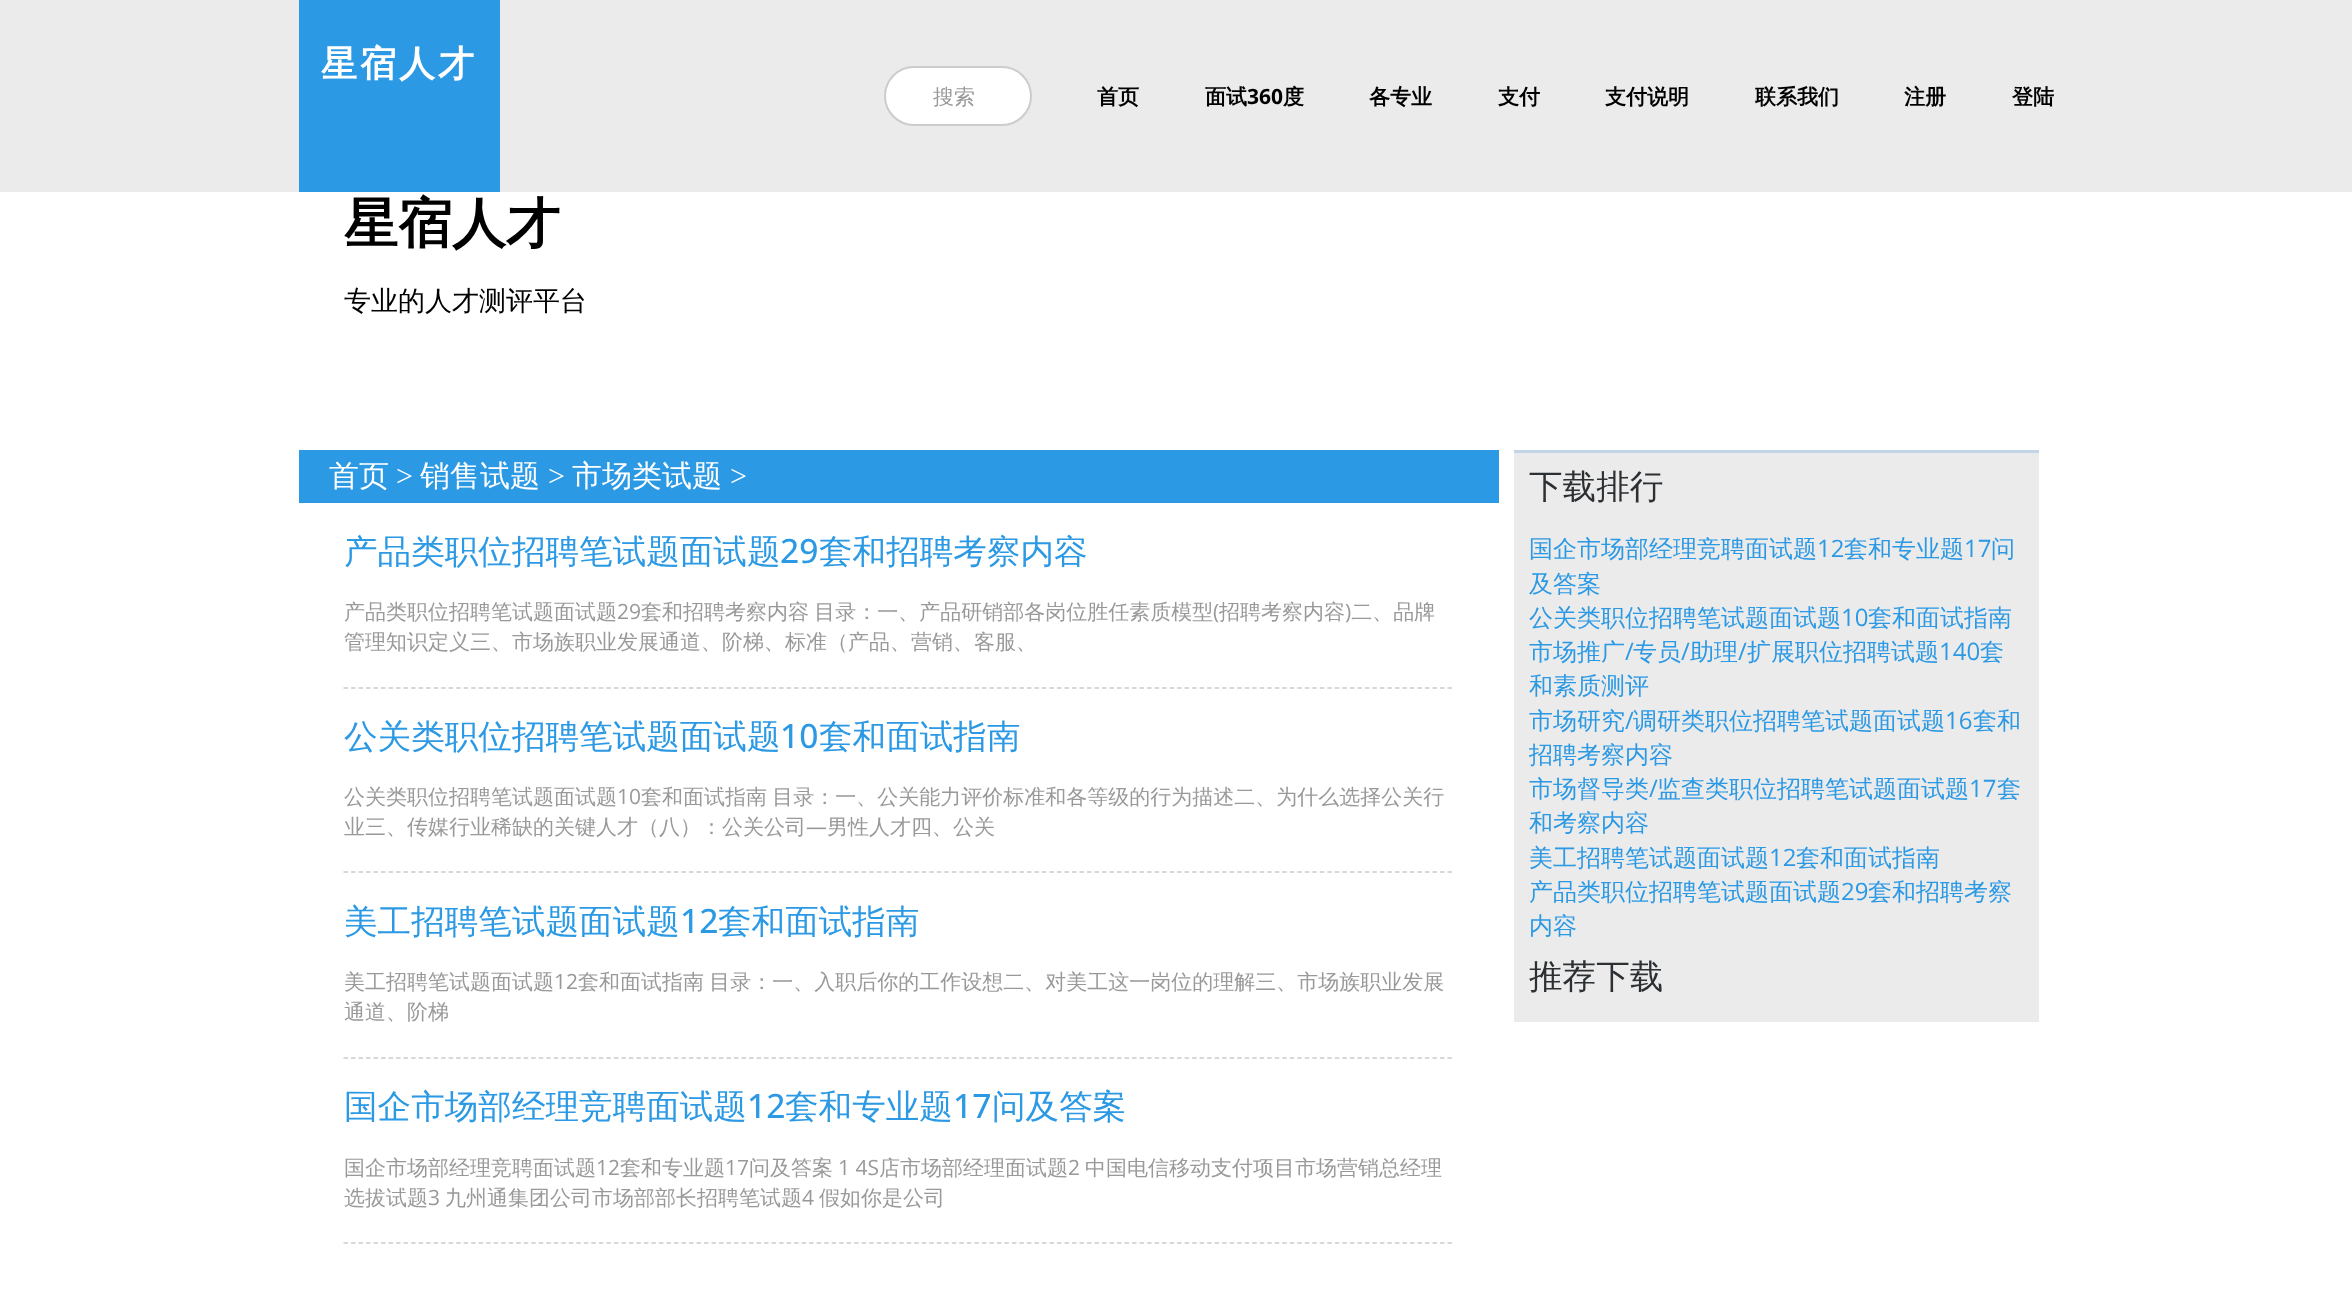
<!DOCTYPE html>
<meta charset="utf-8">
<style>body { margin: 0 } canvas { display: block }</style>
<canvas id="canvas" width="2352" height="1291"></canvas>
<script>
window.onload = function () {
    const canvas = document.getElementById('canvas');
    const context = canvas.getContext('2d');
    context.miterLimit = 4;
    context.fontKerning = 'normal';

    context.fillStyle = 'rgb(255, 255, 255)';
    context.fillRect(0, 0, 2352, 1291);
    context.fillStyle = 'rgb(235, 235, 235)';
    context.fillRect(0, 0, 2352, 192);
    context.fillStyle = 'rgb(43, 153, 228)';
    context.fillRect(299, 0, 201, 192);
    context.fillStyle = 'rgb(255, 255, 255)';
    context.beginPath();
    context.roundRect(885, 67, 146, 58, 29);
    context.fill();
    context.strokeStyle = 'rgb(204, 204, 204)';
    context.lineWidth = 2;
    context.stroke();
    context.fillStyle = 'rgb(43, 153, 228)';
    context.fillRect(299, 450, 1200, 53);
    context.beginPath();
    context.moveTo(343.5, 688);
    context.lineTo(1453.5, 688);
    context.lineWidth = 1.5;
    context.setLineDash([4.5, 3.01]);
    context.stroke();
    context.beginPath();
    context.moveTo(343.5, 872);
    context.lineTo(1453.5, 872);
    context.stroke();
    context.beginPath();
    context.moveTo(343.5, 1058);
    context.lineTo(1453.5, 1058);
    context.stroke();
    context.beginPath();
    context.moveTo(343.5, 1243);
    context.lineTo(1453.5, 1243);
    context.stroke();
    context.fillStyle = 'rgb(235, 235, 235)';
    context.fillRect(1514, 453, 525, 569);
    context.fillStyle = 'rgb(195, 212, 231)';
    context.fillRect(1514, 450, 525, 3);
    context.letterSpacing = '3px';
    context.font = 'bold 36px WenQuanYi Zen Hei';
    context.fillStyle = 'rgb(255, 255, 255)';
    context.fillText('星宿人才', 321, 76);
    context.letterSpacing = '0px';
    context.font = '500 21px WenQuanYi Zen Hei';
    context.fillStyle = 'rgb(153, 153, 153)';
    context.fillText('搜索', 933, 104);
    context.font = 'bold 21px WenQuanYi Zen Hei';
    context.fillStyle = 'rgb(0, 0, 0)';
    context.fillText('首页', 1097, 104);
    context.fillText('面试', 1205, 104);
    context.font = 'bold 21px Open Sans';
    context.fillText('360', 1247, 104);
    context.font = 'bold 21px WenQuanYi Zen Hei';
    context.fillText('度', 1283, 104);
    context.fillText('各专业', 1369, 104);
    context.fillText('支付', 1498, 104);
    context.fillText('支付说明', 1605, 104);
    context.fillText('联系我们', 1755, 104);
    context.fillText('注册', 1904, 104);
    context.fillText('登陆', 2012, 104);
    context.font = 'bold 54px WenQuanYi Zen Hei';
    context.fillText('星宿人才', 344, 242);
    context.font = '500 27px WenQuanYi Zen Hei';
    context.fillText('专业的人才测评平台', 344, 310);
    context.font = '500 30px WenQuanYi Zen Hei';
    context.fillStyle = 'rgb(255, 255, 255)';
    context.fillText('首页', 329, 486);
    context.font = '30px Liberation Serif';
    context.fillText('>', 396, 486);
    context.font = '500 30px WenQuanYi Zen Hei';
    context.fillText('销售试题', 420, 486);
    context.font = '30px Liberation Serif';
    context.fillText('>', 548, 486);
    context.font = '500 30px WenQuanYi Zen Hei';
    context.fillText('市场类试题', 572, 486);
    context.font = '30px Liberation Serif';
    context.fillText('>', 730, 486);
    context.font = '500 33.6px WenQuanYi Zen Hei';
    context.fillStyle = 'rgb(43, 153, 228)';
    context.fillText('产品类职位招聘笔试题面试题', 344, 563);
    context.font = '500 33.6px Open Sans';
    context.fillText('29', 780, 563);
    context.font = '500 33.6px WenQuanYi Zen Hei';
    context.fillText('套和招聘考察内容', 819, 563);
    context.font = '500 21px WenQuanYi Zen Hei';
    context.fillStyle = 'rgb(153, 153, 153)';
    context.fillText('产品类职位招聘笔试题面试题', 344, 619);
    context.font = '21px Open Sans';
    context.fillText('29', 617, 619);
    context.wordSpacing = '-1px';
    context.font = '500 21px WenQuanYi Zen Hei';
    context.fillText('套和招聘考察内容 目录：一、产品研销部各岗位胜任素质模型', 641, 619);
    context.wordSpacing = '0px';
    context.font = '21px Open Sans';
    context.fillText('(', 1213, 619);
    context.font = '500 21px WenQuanYi Zen Hei';
    context.fillText('招聘考察内容 二、品牌', 1219, 619);
    context.font = '21px Open Sans';
    context.fillText(')', 1345, 619);
    context.font = '500 21px WenQuanYi Zen Hei';
    context.fillText('管理知识定义三、市场族职业发展通道、阶梯、标准（产品、营销、客服、', 344, 649);
    context.font = '500 33.6px WenQuanYi Zen Hei';
    context.fillStyle = 'rgb(43, 153, 228)';
    context.fillText('公关类职位招聘笔试题面试题', 344, 748);
    context.font = '500 33.6px Open Sans';
    context.fillText('10', 780, 748);
    context.font = '500 33.6px WenQuanYi Zen Hei';
    context.fillText('套和面试指南', 819, 748);
    context.font = '500 21px WenQuanYi Zen Hei';
    context.fillStyle = 'rgb(153, 153, 153)';
    context.fillText('公关类职位招聘笔试题面试题', 344, 804);
    context.font = '21px Open Sans';
    context.fillText('10', 617, 804);
    context.wordSpacing = '-1px';
    context.font = '500 21px WenQuanYi Zen Hei';
    context.fillText('套和面试指南 目录：一、公关能力评价标准和各等级的行为描述二、为什么选择公关行', 641, 804);
    context.wordSpacing = '0px';
    context.fillText('业三、传媒行业稀缺的关键人才（八）：公关公司', 344, 834);
    context.font = '21px Open Sans';
    context.fillText('—', 806, 834);
    context.font = '500 21px WenQuanYi Zen Hei';
    context.fillText('男性人才四、公关', 827, 834);
    context.font = '500 33.6px WenQuanYi Zen Hei';
    context.fillStyle = 'rgb(43, 153, 228)';
    context.fillText('美工招聘笔试题面试题', 344, 933);
    context.font = '500 33.6px Open Sans';
    context.fillText('12', 680, 933);
    context.font = '500 33.6px WenQuanYi Zen Hei';
    context.fillText('套和面试指南', 718, 933);
    context.font = '500 21px WenQuanYi Zen Hei';
    context.fillStyle = 'rgb(153, 153, 153)';
    context.fillText('美工招聘笔试题面试题', 344, 989);
    context.font = '21px Open Sans';
    context.fillText('12', 554, 989);
    context.wordSpacing = '-1px';
    context.font = '500 21px WenQuanYi Zen Hei';
    context.fillText('套和面试指南 目录：一、入职后你的工作设想二、对美工这一岗位的理解三、市场族职业发展', 578, 989);
    context.wordSpacing = '0px';
    context.fillText('通道、阶梯', 344, 1019);
    context.font = '500 33.6px WenQuanYi Zen Hei';
    context.fillStyle = 'rgb(43, 153, 228)';
    context.fillText('国企市场部经理竞聘面试题', 344, 1118);
    context.font = '500 33.6px Open Sans';
    context.fillText('12', 747, 1118);
    context.font = '500 33.6px WenQuanYi Zen Hei';
    context.fillText('套和专业题', 785, 1118);
    context.font = '500 33.6px Open Sans';
    context.fillText('17', 953, 1118);
    context.font = '500 33.6px WenQuanYi Zen Hei';
    context.fillText('问及答案', 992, 1118);
    context.font = '500 21px WenQuanYi Zen Hei';
    context.fillStyle = 'rgb(153, 153, 153)';
    context.fillText('国企市场部经理竞聘面试题', 344, 1175);
    context.font = '21px Open Sans';
    context.fillText('12', 596, 1175);
    context.font = '500 21px WenQuanYi Zen Hei';
    context.fillText('套和专业题', 620, 1175);
    context.font = '21px Open Sans';
    context.fillText('17', 725, 1175);
    context.font = '500 21px WenQuanYi Zen Hei';
    context.fillText('问及答案', 749, 1175);
    context.font = '21px Open Sans';
    context.fillText('1 4S', 838, 1175);
    context.font = '500 21px WenQuanYi Zen Hei';
    context.fillText('店市场部经理面试题', 879, 1175);
    context.font = '21px Open Sans';
    context.fillText('2', 1068, 1175);
    context.font = '500 21px WenQuanYi Zen Hei';
    context.fillText('中国电信移动支付项目市场营销总经理', 1085, 1175);
    context.fillText('选拔试题', 344, 1205);
    context.font = '21px Open Sans';
    context.fillText('3', 428, 1205);
    context.font = '500 21px WenQuanYi Zen Hei';
    context.fillText('九州通集团公司市场部部长招聘笔试题', 445, 1205);
    context.font = '21px Open Sans';
    context.fillText('4', 802, 1205);
    context.font = '500 21px WenQuanYi Zen Hei';
    context.fillText('假如你是公司', 819, 1205);
    context.font = '500 33.6px WenQuanYi Zen Hei';
    context.fillStyle = 'rgb(45, 48, 51)';
    context.fillText('下载排行', 1529, 498);
    context.font = '500 24px WenQuanYi Zen Hei';
    context.fillStyle = 'rgb(43, 153, 228)';
    context.fillText('国企市场部经理竞聘面试题', 1529, 557);
    context.font = '24px Open Sans';
    context.fillText('12', 1817, 557);
    context.font = '500 24px WenQuanYi Zen Hei';
    context.fillText('套和专业题', 1844, 557);
    context.font = '24px Open Sans';
    context.fillText('17', 1964, 557);
    context.font = '500 24px WenQuanYi Zen Hei';
    context.fillText('问', 1991, 557);
    context.fillText('及答案', 1529, 592);
    context.fillText('公关类职位招聘笔试题面试题', 1529, 626);
    context.font = '24px Open Sans';
    context.fillText('10', 1841, 626);
    context.font = '500 24px WenQuanYi Zen Hei';
    context.fillText('套和面试指南', 1868, 626);
    context.fillText('市场推广', 1529, 660);
    context.font = '24px Open Sans';
    context.fillText('/', 1625, 660);
    context.font = '500 24px WenQuanYi Zen Hei';
    context.fillText('专员', 1633, 660);
    context.font = '24px Open Sans';
    context.fillText('/', 1681, 660);
    context.font = '500 24px WenQuanYi Zen Hei';
    context.fillText('助理', 1690, 660);
    context.font = '24px Open Sans';
    context.fillText('/', 1738, 660);
    context.font = '500 24px WenQuanYi Zen Hei';
    context.fillText('扩展职位招聘试题', 1747, 660);
    context.font = '24px Open Sans';
    context.fillText('140', 1939, 660);
    context.font = '500 24px WenQuanYi Zen Hei';
    context.fillText('套', 1980, 660);
    context.fillText('和素质测评', 1529, 694);
    context.fillText('市场研究', 1529, 729);
    context.font = '24px Open Sans';
    context.fillText('/', 1625, 729);
    context.font = '500 24px WenQuanYi Zen Hei';
    context.fillText('调研类职位招聘笔试题面试题', 1633, 729);
    context.font = '24px Open Sans';
    context.fillText('16', 1945, 729);
    context.font = '500 24px WenQuanYi Zen Hei';
    context.fillText('套和', 1973, 729);
    context.fillText('招聘考察内容', 1529, 763);
    context.fillText('市场督导类', 1529, 797);
    context.font = '24px Open Sans';
    context.fillText('/', 1649, 797);
    context.font = '500 24px WenQuanYi Zen Hei';
    context.fillText('监查类职位招聘笔试题面试题', 1657, 797);
    context.font = '24px Open Sans';
    context.fillText('17', 1969, 797);
    context.font = '500 24px WenQuanYi Zen Hei';
    context.fillText('套', 1997, 797);
    context.fillText('和考察内容', 1529, 831);
    context.fillText('美工招聘笔试题面试题', 1529, 866);
    context.font = '24px Open Sans';
    context.fillText('12', 1769, 866);
    context.font = '500 24px WenQuanYi Zen Hei';
    context.fillText('套和面试指南', 1796, 866);
    context.fillText('产品类职位招聘笔试题面试题', 1529, 900);
    context.font = '24px Open Sans';
    context.fillText('29', 1841, 900);
    context.font = '500 24px WenQuanYi Zen Hei';
    context.fillText('套和招聘考察', 1868, 900);
    context.fillText('内容', 1529, 934);
    context.font = '500 33.6px WenQuanYi Zen Hei';
    context.fillStyle = 'rgb(45, 48, 51)';
    context.fillText('推荐下载', 1529, 988);
};
</script>
